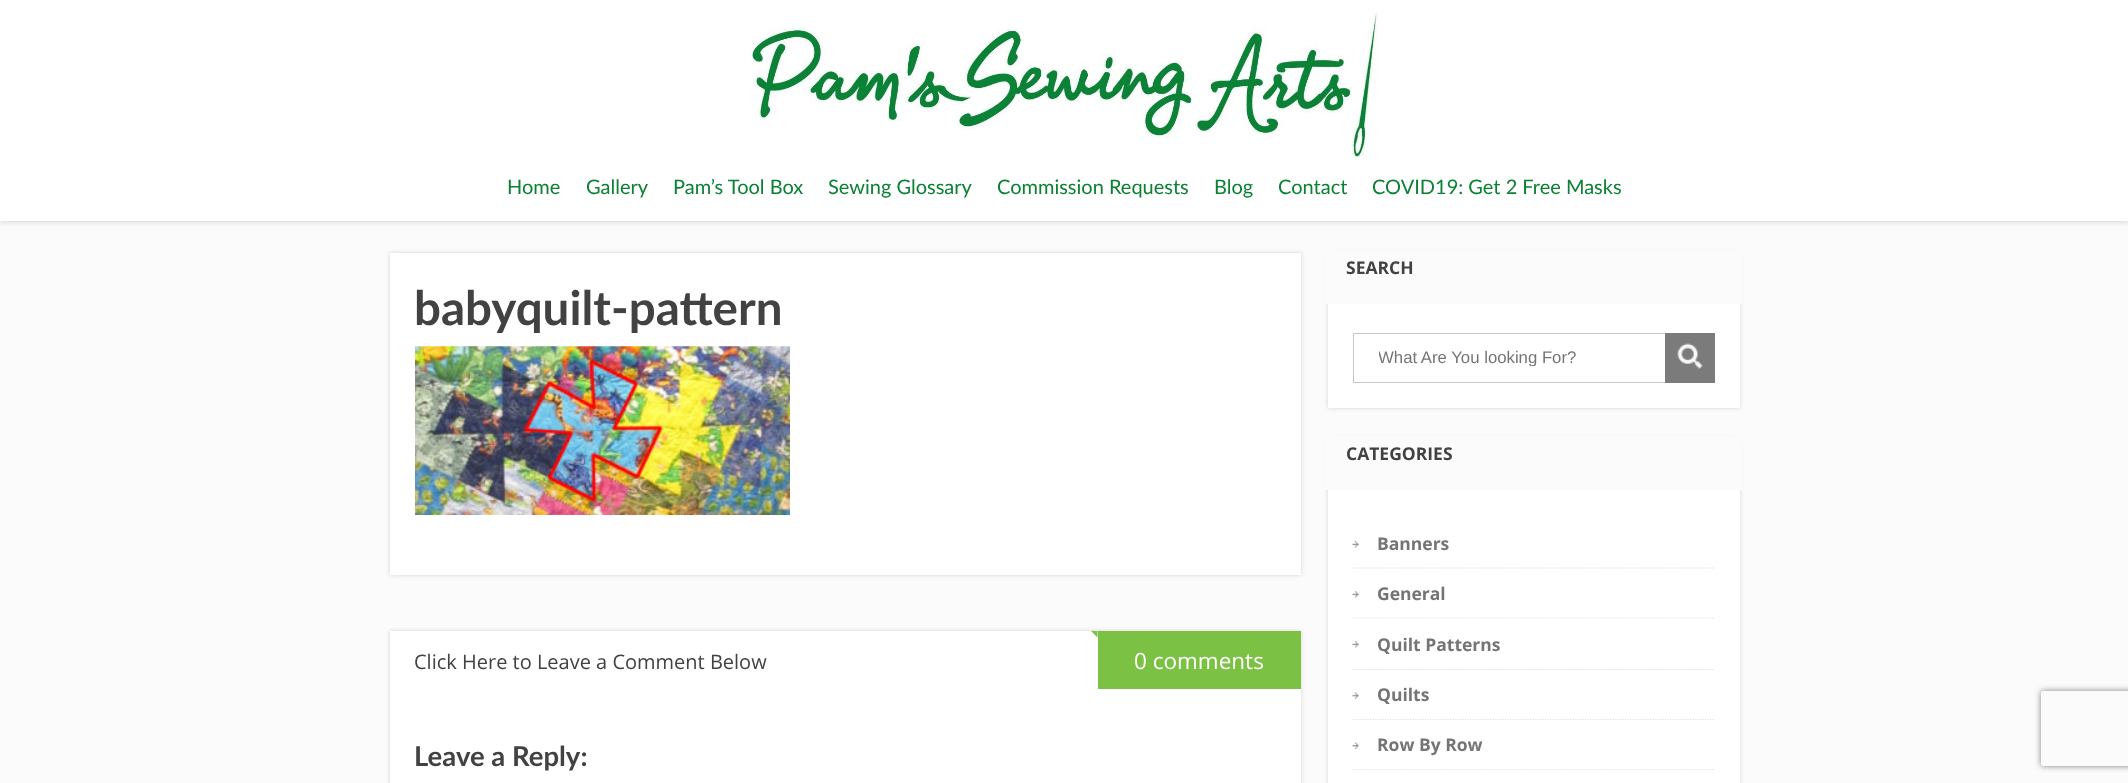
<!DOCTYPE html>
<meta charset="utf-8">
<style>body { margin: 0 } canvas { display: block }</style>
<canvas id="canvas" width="2128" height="783"></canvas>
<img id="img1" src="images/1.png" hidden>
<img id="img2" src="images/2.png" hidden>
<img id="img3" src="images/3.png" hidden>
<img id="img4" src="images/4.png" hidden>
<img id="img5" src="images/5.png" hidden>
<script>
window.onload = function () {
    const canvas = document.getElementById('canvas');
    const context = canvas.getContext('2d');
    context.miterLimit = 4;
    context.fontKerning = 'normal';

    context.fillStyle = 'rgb(251, 251, 251)';
    context.fillRect(0, 0, 2128, 783);
    context.fillStyle = 'rgb(223, 221, 221)';
    context.filter = 'blur(2.5px)';
    context.beginPath();
    context.rect(0, 1, 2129, 222);
    context.fill();
    context.filter = 'none';
    context.fillStyle = 'rgb(255, 255, 255)';
    context.fillRect(0, 0, 2128, 221);
    context.drawImage(document.getElementById('img1'), 752, 12, 626, 146);
    context.fillStyle = 'rgba(1, 1, 1, 0.16)';
    context.filter = 'blur(2px)';
    context.beginPath();
    context.rect(390, 253, 911, 322);
    context.fill();
    context.filter = 'none';
    context.fillStyle = 'rgb(255, 255, 255)';
    context.fillRect(390, 253, 911, 322);
    context.drawImage(document.getElementById('img2'), 415, 346, 375, 169);
    context.fillStyle = 'rgba(1, 1, 1, 0.16)';
    context.filter = 'blur(2px)';
    context.beginPath();
    context.rect(390, 631, 911, 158);
    context.fill();
    context.filter = 'none';
    context.fillStyle = 'rgb(255, 255, 255)';
    context.fillRect(390, 631, 911, 152);
    context.fillStyle = 'rgb(123, 193, 67)';
    context.fillRect(1098, 631, 203, 58);
    context.beginPath();
    context.moveTo(1097.5, 631);
    context.lineTo(1097.5, 637.5);
    context.lineTo(1091, 631);
    context.closePath();
    context.fill();
    context.fillStyle = 'rgba(1, 1, 1, 0.16)';
    context.filter = 'blur(2px)';
    context.beginPath();
    context.rect(1328, 253, 412, 155);
    context.fill();
    context.filter = 'none';
    context.fillStyle = 'rgb(255, 255, 255)';
    context.fillRect(1328, 304, 412, 104);
    context.fillStyle = 'rgb(251, 251, 251)';
    context.fillRect(1325, 250, 418, 54);
    context.strokeStyle = 'rgb(198, 198, 198)';
    context.strokeRect(1353.5, 333.5, 361, 49);
    context.fillStyle = 'rgb(123, 123, 123)';
    context.fillRect(1665, 333, 50, 50);
    context.drawImage(document.getElementById('img3'), 1677, 343, 26, 26);
    context.fillStyle = 'rgba(1, 1, 1, 0.16)';
    context.filter = 'blur(2px)';
    context.beginPath();
    context.rect(1328, 439, 412, 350);
    context.fill();
    context.filter = 'none';
    context.fillStyle = 'rgb(255, 255, 255)';
    context.fillRect(1328, 490, 412, 293);
    context.fillStyle = 'rgb(251, 251, 251)';
    context.fillRect(1325, 436, 418, 54);
    context.drawImage(document.getElementById('img4'), 1352, 541, 7, 7);
    context.beginPath();
    context.moveTo(1352.5, 568);
    context.lineTo(1715, 568);
    context.strokeStyle = 'rgb(226, 223, 223)';
    context.lineWidth = 1.2;
    context.setLineDash([1.25, 1.25]);
    context.stroke();
    context.drawImage(document.getElementById('img4'), 1352, 591, 7, 7);
    context.beginPath();
    context.moveTo(1352.5, 618);
    context.lineTo(1715, 618);
    context.stroke();
    context.drawImage(document.getElementById('img4'), 1352, 641, 7, 7);
    context.beginPath();
    context.moveTo(1352.5, 669.5);
    context.lineTo(1715, 669.5);
    context.stroke();
    context.drawImage(document.getElementById('img5'), 1352, 692, 7, 7);
    context.beginPath();
    context.moveTo(1352.5, 719.5);
    context.lineTo(1715, 719.5);
    context.stroke();
    context.drawImage(document.getElementById('img5'), 1352, 742, 7, 7);
    context.beginPath();
    context.moveTo(1352.5, 769.5);
    context.lineTo(1715, 769.5);
    context.stroke();
    context.save();
    context.beginPath();
    context.moveTo(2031, 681);
    context.lineTo(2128, 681);
    context.lineTo(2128, 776);
    context.lineTo(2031, 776);
    context.closePath();
    context.moveTo(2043.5, 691);
    context.lineTo(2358.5, 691);
    context.bezierCurveTo(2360, 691, 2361, 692, 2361, 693.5);
    context.lineTo(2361, 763.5);
    context.bezierCurveTo(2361, 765, 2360, 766, 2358.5, 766);
    context.lineTo(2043.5, 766);
    context.bezierCurveTo(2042, 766, 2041, 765, 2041, 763.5);
    context.lineTo(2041, 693.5);
    context.bezierCurveTo(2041, 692, 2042, 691, 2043.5, 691);
    context.closePath();
    context.clip('evenodd');
    context.fillStyle = 'rgb(128, 128, 128)';
    context.filter = 'blur(3px)';
    context.beginPath();
    context.roundRect(2041, 691, 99, 75, 2.5);
    context.fill();
    context.filter = 'none';
    context.restore();
    context.font = '20px Lato';
    context.fillStyle = 'rgb(11, 129, 51)';
    context.fillText('Home', 507, 194);
    context.fillText('Gallery', 586, 194);
    context.fillText('Pam’s Tool Box', 673, 194);
    context.fillText('Sewing Glossary', 828, 194);
    context.fillText('Commission Requests', 997, 194);
    context.fillText('Blog', 1214, 194);
    context.fillText('Contact', 1278, 194);
    context.fillText('COVID19: Get 2 Free Masks', 1372, 194);
    context.font = 'bold 47.5px Lato';
    context.fillStyle = 'rgb(66, 66, 66)';
    context.fillText('babyquilt-pattern', 414, 325);
    context.font = '20px Open Sans';
    context.fillText('Click Here to Leave a Comment Below', 414, 669);
    context.font = '22.5px Open Sans';
    context.fillStyle = 'rgb(255, 255, 255)';
    context.fillText('0 comments', 1134, 669);
    context.font = 'bold 27.5px Lato';
    context.fillStyle = 'rgb(66, 66, 66)';
    context.fillText('Leave a Reply:', 414, 766);
    context.font = 'bold 17.5px Open Sans';
    context.fillText('SEARCH', 1346, 274);
    context.save();
    context.beginPath();
    context.rect(1379, 348, 285, 18);
    context.clip();
    context.font = '16.75px Liberation Sans';
    context.fillStyle = 'rgb(117, 117, 117)';
    context.fillText('What Are You looking For?', 1378, 363);
    context.restore();
    context.fillText('CATEGORIES', 1346, 460);
    context.fillStyle = 'rgb(117, 117, 117)';
    context.fillText('Banners', 1377, 550);
    context.fillText('General', 1377, 600);
    context.fillText('Quilt Patterns', 1377, 651);
    context.fillText('Quilts', 1377, 701);
    context.fillText('Row By Row', 1377, 751);
};
</script>
